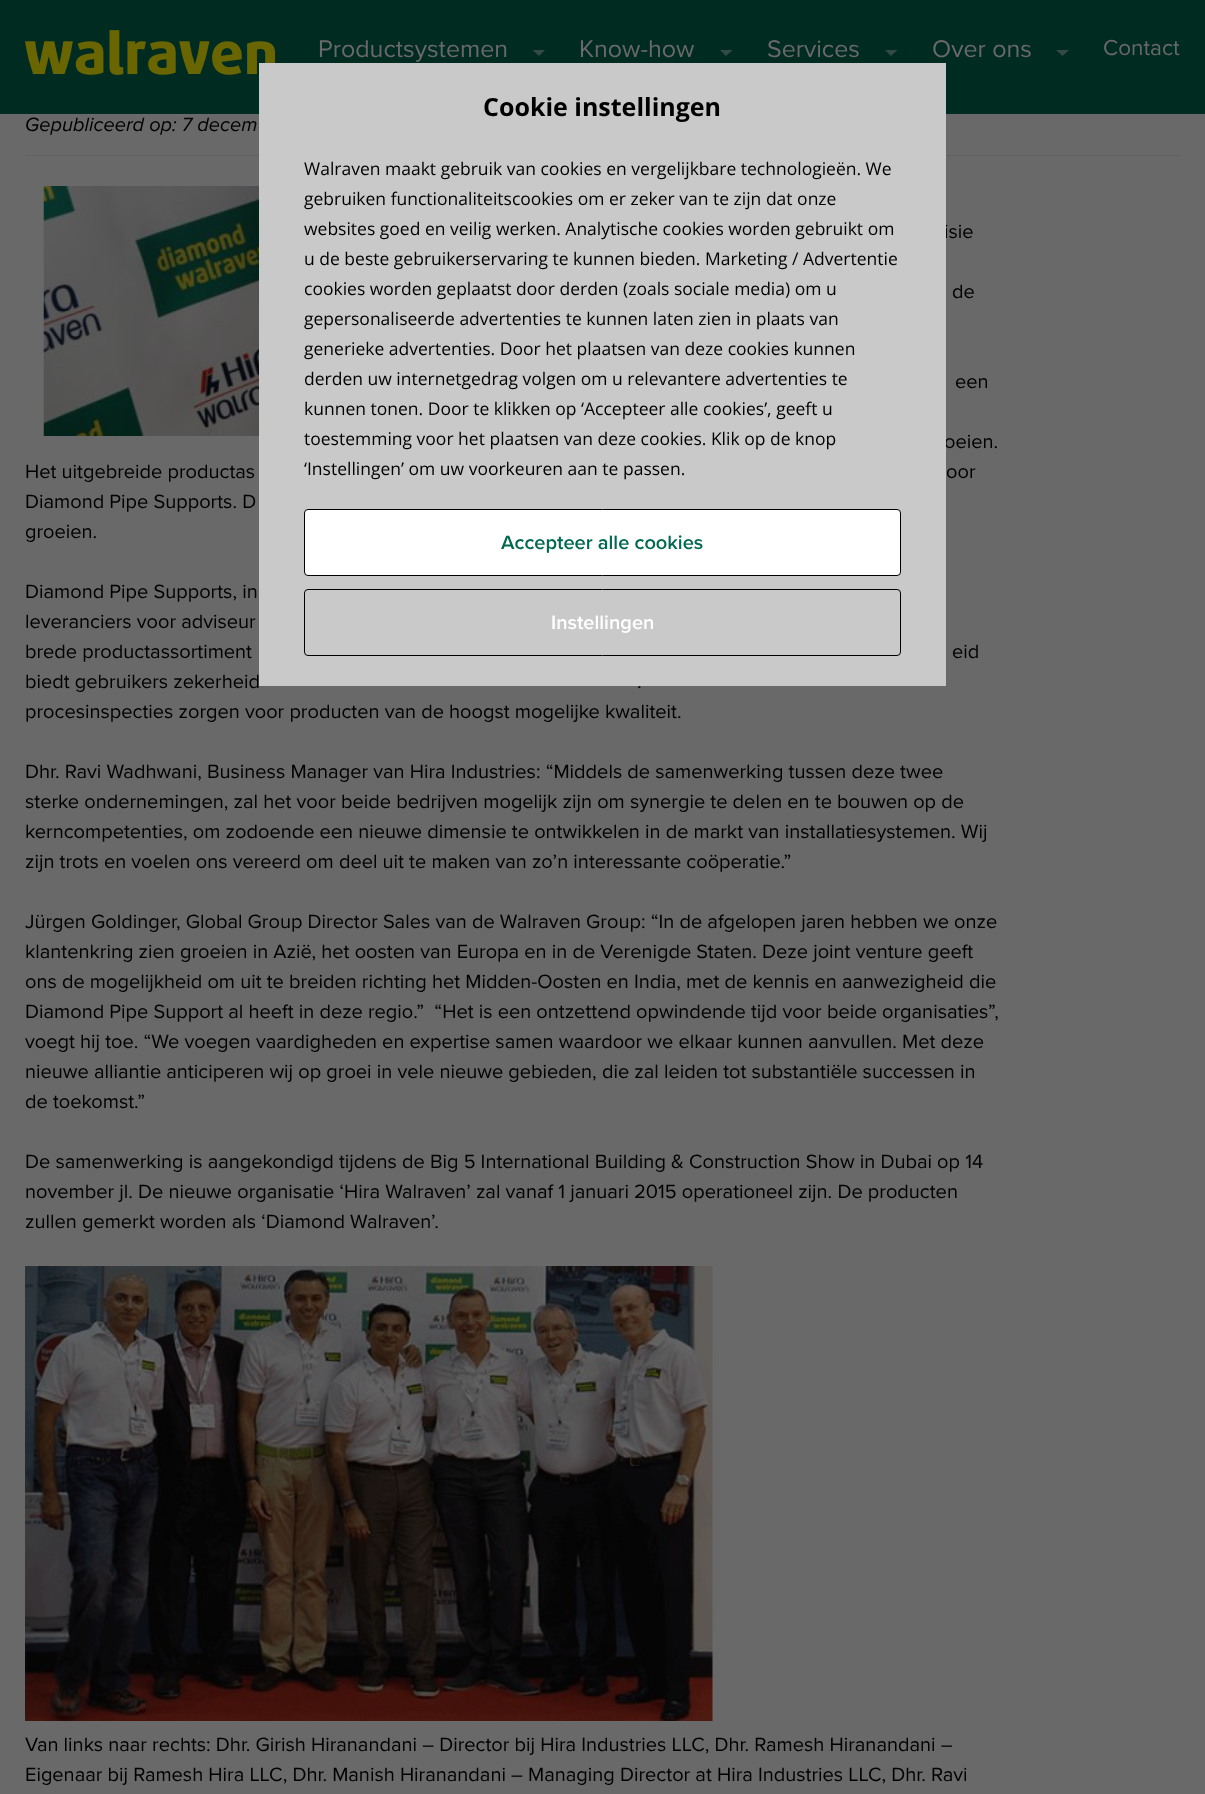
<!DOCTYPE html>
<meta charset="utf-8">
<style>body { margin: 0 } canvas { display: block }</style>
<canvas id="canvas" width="1205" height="1794"></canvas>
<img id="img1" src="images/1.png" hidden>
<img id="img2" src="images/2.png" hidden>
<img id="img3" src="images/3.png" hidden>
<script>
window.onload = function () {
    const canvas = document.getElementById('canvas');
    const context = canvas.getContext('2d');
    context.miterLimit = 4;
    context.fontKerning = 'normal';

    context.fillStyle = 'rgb(105, 105, 105)';
    context.fillRect(0, 0, 1205, 1794);
    context.fillStyle = 'rgb(0, 43, 33)';
    context.fillRect(0, 0, 1205, 114);
    context.drawImage(document.getElementById('img1'), 25, 30, 250, 45);
    context.fillStyle = 'rgb(52, 74, 69)';
    context.beginPath();
    context.moveTo(532.5, 50);
    context.lineTo(545, 50);
    context.lineTo(539, 56);
    context.closePath();
    context.fill();
    context.beginPath();
    context.moveTo(720, 50);
    context.lineTo(732.5, 50);
    context.lineTo(726, 56);
    context.closePath();
    context.fill();
    context.beginPath();
    context.moveTo(885, 50);
    context.lineTo(897.5, 50);
    context.lineTo(891, 56);
    context.closePath();
    context.fill();
    context.beginPath();
    context.moveTo(1056, 50);
    context.lineTo(1069, 50);
    context.lineTo(1062.5, 56);
    context.closePath();
    context.fill();
    context.fillStyle = 'rgb(95, 97, 96)';
    context.fillRect(25, 155, 1155, 1);
    context.drawImage(document.getElementById('img2'), 43, 186, 216, 250);
    context.drawImage(document.getElementById('img3'), 25, 1266, 688, 455);
    context.font = '25px Proxima Nova';
    context.fillStyle = 'rgb(105, 105, 105)';
    context.fillText('Productsystemen', 318, 57);
    context.fillText('Know-how', 579, 57);
    context.fillText('Services', 767, 57);
    context.fillText('Over ons', 932, 57);
    context.font = '22.5px Proxima Nova';
    context.fillText('Contact', 1103, 55);
    context.font = 'italic 20px Proxima Nova';
    context.fillStyle = 'rgb(0, 0, 0)';
    context.fillText('Gepubliceerd op: 7 decem', 25, 131);
    context.font = '20px Proxima Nova';
    context.fillText('isie', 944, 238);
    context.fillText('de', 952, 298);
    context.fillText('een', 955, 388);
    context.fillText('oeien.', 944, 448);
    context.fillStyle = 'rgb(201, 201, 201)';
    context.fillRect(259, 63, 687, 623);
    context.beginPath();
    context.roundRect(304.5, 589.5, 596, 66, 3.5);
    context.strokeStyle = 'rgb(0, 0, 0)';
    context.stroke();
    context.font = '600 20px Proxima Nova';
    context.fillStyle = 'rgb(255, 255, 255)';
    context.fillText('Instellingen', 551, 629);
    context.beginPath();
    context.roundRect(304.5, 509.5, 596, 66, 3.5);
    context.fill();
    context.stroke();
    context.fillStyle = 'rgb(0, 105, 80)';
    context.fillText('Accepteer alle cookies', 501, 549);
    context.font = '17.5px Open Sans';
    context.fillStyle = 'rgb(0, 0, 0)';
    context.fillText('‘Instellingen’ om uw voorkeuren aan te passen.', 304, 475);
    context.fillText('toestemming voor het plaatsen van deze cookies. Klik op de knop', 304, 445);
    context.fillText('kunnen tonen. Door te klikken op ‘Accepteer alle cookies’, geeft u', 304, 415);
    context.fillText('derden uw internetgedrag volgen om u relevantere advertenties te', 304, 385);
    context.fillText('generieke advertenties. Door het plaatsen van deze cookies kunnen', 304, 355);
    context.fillText('gepersonaliseerde advertenties te kunnen laten zien in plaats van', 304, 325);
    context.fillText('cookies worden geplaatst door derden (zoals sociale media) om u', 304, 295);
    context.fillText('u de beste gebruikerservaring te kunnen bieden. Marketing / Advertentie', 304, 265);
    context.fillText('websites goed en veilig werken. Analytische cookies worden gebruikt om', 304, 235);
    context.fillText('gebruiken functionaliteitscookies om er zeker van te zijn dat onze', 304, 205);
    context.fillText('Walraven maakt gebruik van cookies en vergelijkbare technologieën. We', 304, 175);
    context.font = 'bold 25px Open Sans';
    context.fillText('Cookie instellingen', 483, 116);
    context.font = '20px Proxima Nova';
    context.fillText('Het uitgebreide productas', 25, 478);
    context.fillText('oor', 946, 478);
    context.fillText('Diamond Pipe Supports. D', 25, 508);
    context.fillText('groeien.', 25, 538);
    context.fillText('Diamond Pipe Supports, in', 25, 598);
    context.fillText('leveranciers voor adviseur', 25, 628);
    context.fillText('brede productassortiment', 25, 658);
    context.fillText('eid', 952, 658);
    context.fillText('biedt gebruikers zekerheid', 25, 688);
    context.fillText('.', 637, 688);
    context.fillText('procesinspecties zorgen voor producten van de hoogst mogelijke kwaliteit.', 25, 718);
    context.fillText('Dhr. Ravi Wadhwani, Business Manager van Hira Industries: “Middels de samenwerking tussen deze twee', 25, 778);
    context.fillText('sterke ondernemingen, zal het voor beide bedrijven mogelijk zijn om synergie te delen en te bouwen op de', 25, 808);
    context.fillText('kerncompetenties, om zodoende een nieuwe dimensie te ontwikkelen in de markt van installatiesystemen. Wij', 25, 838);
    context.fillText('zijn trots en voelen ons vereerd om deel uit te maken van zo’n interessante coöperatie.”', 25, 868);
    context.fillText('Jürgen Goldinger, Global Group Director Sales van de Walraven Group: “In de afgelopen jaren hebben we onze', 25, 928);
    context.fillText('klantenkring zien groeien in Azië, het oosten van Europa en in de Verenigde Staten. Deze joint venture geeft', 25, 958);
    context.fillText('ons de mogelijkheid om uit te breiden richting het Midden-Oosten en India, met de kennis en aanwezigheid die', 25, 988);
    context.fillText('Diamond Pipe Support al heeft in deze regio.”  “Het is een ontzettend opwindende tijd voor beide organisaties”,', 25, 1018);
    context.fillText('voegt hij toe. “We voegen vaardigheden en expertise samen waardoor we elkaar kunnen aanvullen. Met deze', 25, 1048);
    context.fillText('nieuwe alliantie anticiperen wij op groei in vele nieuwe gebieden, die zal leiden tot substantiële successen in', 25, 1078);
    context.fillText('de toekomst.”', 25, 1108);
    context.fillText('De samenwerking is aangekondigd tijdens de Big 5 International Building & Construction Show in Dubai op 14', 25, 1168);
    context.fillText('november jl. De nieuwe organisatie ‘Hira Walraven’ zal vanaf 1 januari 2015 operationeel zijn. De producten', 25, 1198);
    context.fillText('zullen gemerkt worden als ‘Diamond Walraven’.', 25, 1228);
    context.fillText('Van links naar rechts: Dhr. Girish Hiranandani – Director bij Hira Industries LLC, Dhr. Ramesh Hiranandani –', 25, 1751);
    context.fillText('Eigenaar bij Ramesh Hira LLC, Dhr. Manish Hiranandani – Managing Director at Hira Industries LLC, Dhr. Ravi', 25, 1781);
};
</script>
